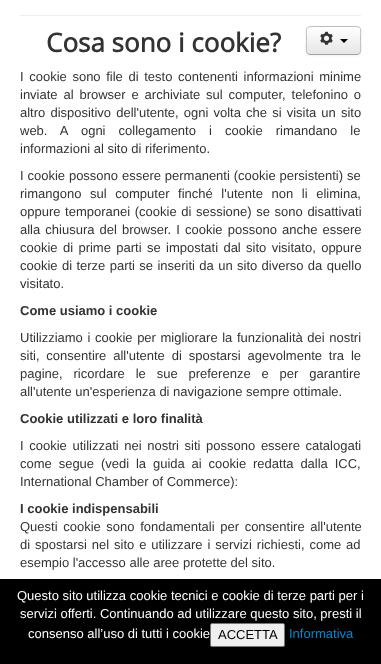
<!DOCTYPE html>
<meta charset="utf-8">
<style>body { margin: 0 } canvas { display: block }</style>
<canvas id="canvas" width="381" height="664"></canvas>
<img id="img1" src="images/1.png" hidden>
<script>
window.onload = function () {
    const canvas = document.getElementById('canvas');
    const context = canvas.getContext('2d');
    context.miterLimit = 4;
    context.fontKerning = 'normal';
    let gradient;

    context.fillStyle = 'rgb(255, 255, 255)';
    context.fillRect(0, 0, 381, 664);
    context.fillStyle = 'rgb(238, 238, 238)';
    context.fillRect(20, 15, 341, 1);
    context.fillStyle = 'rgba(0, 0, 0, 0.05)';
    context.filter = 'blur(1px)';
    context.beginPath();
    context.roundRect(306, 27, 55, 29, 4);
    context.fill();
    context.filter = 'none';
    context.fillStyle = 'rgb(245, 245, 245)';
    context.beginPath();
    context.roundRect(306, 26, 55, 29, 4);
    context.fill();
    context.save();
    context.beginPath();
    context.roundRect(306, 26, 55, 29, 4);
    context.clip();
    gradient = context.createLinearGradient(334, 27, 334, 54);
    gradient.addColorStop(0, 'rgb(255, 255, 255)');
    gradient.addColorStop(1, 'rgb(230, 230, 230)');
    context.fillStyle = gradient;
    context.fillRect(306, 27, 55, 27);
    context.restore();
    context.fillStyle = 'rgb(255, 255, 255)';
    context.beginPath();
    context.moveTo(310, 28);
    context.lineTo(357, 28);
    context.bezierCurveTo(359, 28, 360, 29, 360, 31);
    context.bezierCurveTo(360, 25, 354, 27, 349, 27);
    context.lineTo(318, 27);
    context.bezierCurveTo(313, 27, 307, 25, 307, 31);
    context.bezierCurveTo(307, 29, 308, 28, 310, 28);
    context.closePath();
    context.fill();
    context.beginPath();
    context.moveTo(359.5, 53.5);
    context.bezierCurveTo(359, 54, 358, 54.5, 357, 54.5);
    context.lineTo(310, 54.5);
    context.bezierCurveTo(309, 54.5, 308, 54, 307.5, 53.5);
    context.strokeStyle = 'rgb(162, 162, 162)';
    context.stroke();
    context.beginPath();
    context.moveTo(307.5, 53.5);
    context.bezierCurveTo(305.5, 51.5, 306.5, 43, 306.5, 40.5);
    context.bezierCurveTo(306.5, 26, 304, 26.5, 318, 26.5);
    context.lineTo(349, 26.5);
    context.bezierCurveTo(363, 26.5, 360.5, 26, 360.5, 40.5);
    context.bezierCurveTo(360.5, 43, 361.5, 51.5, 359.5, 53.5);
    context.strokeStyle = 'rgb(187, 187, 187)';
    context.stroke();
    context.drawImage(document.getElementById('img1'), 320, 31, 13, 14);
    context.fillStyle = 'rgb(0, 0, 0)';
    context.beginPath();
    context.moveTo(340, 39);
    context.lineTo(348, 39);
    context.lineTo(344, 43);
    context.closePath();
    context.fill();
    context.fillRect(0, 579, 381, 85);
    context.fillStyle = 'rgb(239, 239, 239)';
    context.beginPath();
    context.roundRect(210.5, 623.5, 74, 23, 1.5);
    context.fill();
    context.strokeStyle = 'rgb(118, 118, 118)';
    context.stroke();
    context.font = 'bold 26px Open Sans';
    context.fillStyle = 'rgb(51, 51, 51)';
    context.fillText('Cosa sono i cookie?', 46, 52);
    context.wordSpacing = '2px';
    context.font = '13px Liberation Sans';
    context.fillText('I cookie sono file di testo contenenti informazioni minime', 20, 81);
    context.wordSpacing = '2.25px';
    context.fillText('inviate al browser e archiviate sul computer, telefonino o', 20, 99);
    context.wordSpacing = '1.5px';
    context.fillText('altro dispositivo dell\'utente, ogni volta che si visita un sito', 20, 117);
    context.wordSpacing = '9.5px';
    context.fillText('web. A ogni collegamento i cookie rimandano le', 20, 135);
    context.wordSpacing = '0px';
    context.fillText('informazioni al sito di riferimento.', 20, 153);
    context.wordSpacing = '0.25px';
    context.fillText('I cookie possono essere permanenti (cookie persistenti) se', 20, 180);
    context.wordSpacing = '5px';
    context.fillText('rimangono sul computer finché l\'utente non li elimina,', 20, 198);
    context.wordSpacing = '1px';
    context.fillText('oppure temporanei (cookie di sessione) se sono disattivati', 20, 216);
    context.wordSpacing = '1.5px';
    context.fillText('alla chiusura del browser. I cookie possono anche essere', 20, 234);
    context.wordSpacing = '1.75px';
    context.fillText('cookie di prime parti se impostati dal sito visitato, oppure', 20, 252);
    context.wordSpacing = '0.75px';
    context.fillText('cookie di terze parti se inseriti da un sito diverso da quello', 20, 270);
    context.wordSpacing = '0px';
    context.fillText('visitato.', 20, 288);
    context.font = 'bold 13px Liberation Sans';
    context.fillText('Come usiamo i cookie', 20, 315);
    context.wordSpacing = '1px';
    context.font = '13px Liberation Sans';
    context.fillText('Utilizziamo i cookie per migliorare la funzionalità dei nostri', 20, 342);
    context.wordSpacing = '3.25px';
    context.fillText('siti, consentire all\'utente di spostarsi agevolmente tra le', 20, 360);
    context.wordSpacing = '7.25px';
    context.fillText('pagine, ricordare le sue preferenze e per garantire', 20, 378);
    context.wordSpacing = '0px';
    context.fillText('all\'utente un\'esperienza di navigazione sempre ottimale.', 20, 396);
    context.font = 'bold 13px Liberation Sans';
    context.fillText('Cookie utilizzati e loro finalità', 20, 423);
    context.wordSpacing = '2px';
    context.font = '13px Liberation Sans';
    context.fillText('I cookie utilizzati nei nostri siti possono essere catalogati', 20, 450);
    context.wordSpacing = '3.25px';
    context.fillText('come segue (vedi la guida ai cookie redatta dalla ICC,', 20, 468);
    context.wordSpacing = '0px';
    context.fillText('International Chamber of Commerce):', 20, 486);
    context.font = 'bold 13px Liberation Sans';
    context.fillText('I cookie indispensabili', 20, 513);
    context.wordSpacing = '2px';
    context.font = '13px Liberation Sans';
    context.fillText('Questi cookie sono fondamentali per consentire all\'utente', 20, 531);
    context.wordSpacing = '1.25px';
    context.fillText('di spostarsi nel sito e utilizzare i servizi richiesti, come ad', 20, 549);
    context.wordSpacing = '0px';
    context.fillText('esempio l\'accesso alle aree protette del sito.', 20, 567);
    context.fillStyle = 'rgb(255, 255, 255)';
    context.fillText('Questo sito utilizza cookie tecnici e cookie di terze parti per i', 17, 600);
    context.fillText('servizi offerti. Continuando ad utilizzare questo sito, presti il', 20, 618);
    context.fillText('consenso all’uso di tutti i cookie', 28, 638);
    context.fillStyle = 'rgb(0, 0, 0)';
    context.fillText('ACCETTA', 218, 639);
    context.fillStyle = 'rgb(0, 136, 204)';
    context.fillText('Informativa', 289, 638);
};
</script>
